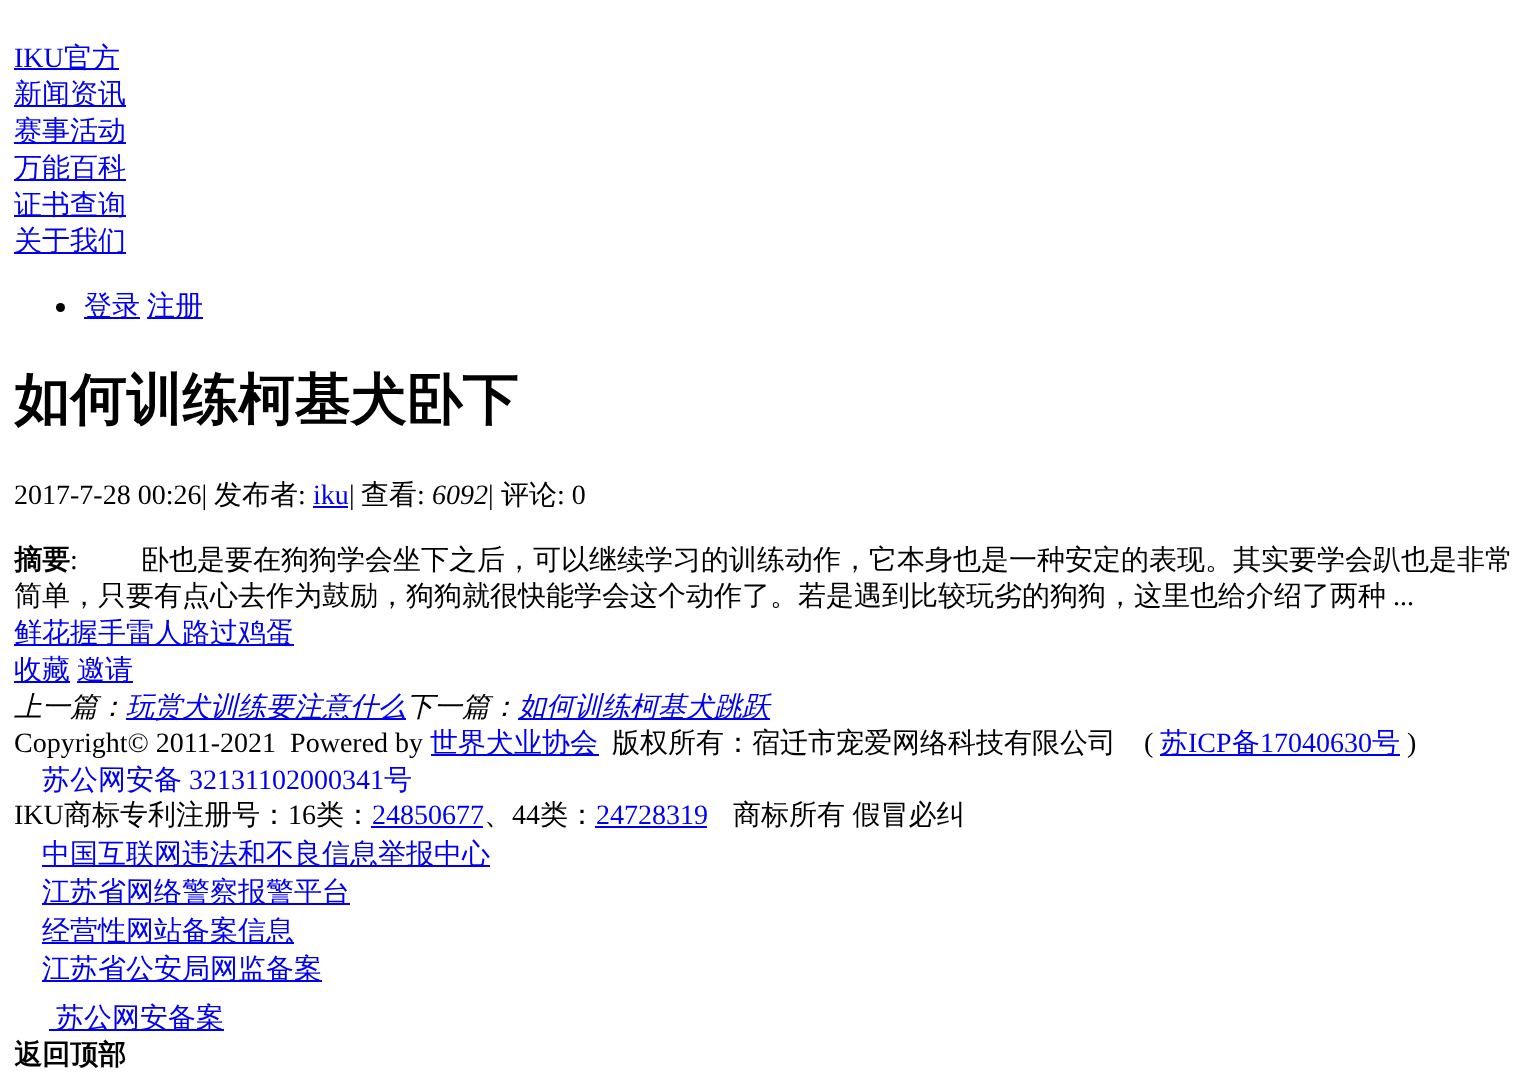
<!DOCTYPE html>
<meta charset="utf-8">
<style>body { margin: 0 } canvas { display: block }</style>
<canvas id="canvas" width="1530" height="1077"></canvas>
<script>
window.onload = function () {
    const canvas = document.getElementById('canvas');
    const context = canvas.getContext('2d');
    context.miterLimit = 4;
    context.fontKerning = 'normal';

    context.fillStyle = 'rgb(255, 255, 255)';
    context.fillRect(0, 0, 1530, 1077);
    context.fillStyle = 'rgb(0, 0, 238)';
    context.fillRect(14, 68, 105, 2);
    context.fillRect(14, 105, 112, 2);
    context.fillRect(14, 142, 112, 2);
    context.fillRect(14, 179, 112, 2);
    context.fillRect(14, 215, 112, 2);
    context.fillRect(14, 252, 112, 2);
    context.fillStyle = 'rgb(0, 0, 0)';
    context.beginPath();
    context.arc(60.5, 307.5, 4.5, 0, 2 * Math.PI);
    context.fill();
    context.fillStyle = 'rgb(0, 0, 238)';
    context.fillRect(84, 317, 56, 2);
    context.fillRect(147, 317, 56, 2);
    context.fillRect(313, 506, 35, 2);
    context.fillRect(14, 644, 280, 2);
    context.fillRect(14, 681, 56, 2);
    context.fillRect(77, 681, 56, 2);
    context.fillRect(126, 718, 280, 2);
    context.fillRect(518, 718, 252, 2);
    context.fillRect(431, 754, 168, 2);
    context.fillRect(1160, 754, 240, 2);
    context.fillRect(371, 826, 112, 2);
    context.fillRect(595, 826, 112, 2);
    context.fillRect(42, 865, 448, 2);
    context.fillRect(42, 903, 308, 2);
    context.fillRect(42, 942, 252, 2);
    context.fillRect(42, 980, 280, 2);
    context.fillRect(49, 1029, 175, 2);
    context.font = '28px Liberation Serif';
    context.fillText('IKU', 14, 67);
    context.font = '500 28px WenQuanYi Zen Hei';
    context.fillText('官方', 64, 67);
    context.fillText('新闻资讯', 14, 103);
    context.fillText('赛事活动', 14, 140);
    context.fillText('万能百科', 14, 177);
    context.fillText('证书查询', 14, 214);
    context.fillText('关于我们', 14, 250);
    context.fillText('登录', 84, 315);
    context.fillText('注册', 147, 315);
    context.font = 'bold 56px WenQuanYi Zen Hei';
    context.fillStyle = 'rgb(0, 0, 0)';
    context.fillText('如何训练柯基犬卧下', 14, 419);
    context.font = '28px Liberation Serif';
    context.fillText('2017-7-28 00:26|', 14, 504);
    context.font = '500 28px WenQuanYi Zen Hei';
    context.fillText('发布者', 214, 504);
    context.font = '28px Liberation Serif';
    context.fillText(':', 298, 504);
    context.fillStyle = 'rgb(0, 0, 238)';
    context.fillText('iku', 313, 504);
    context.fillStyle = 'rgb(0, 0, 0)';
    context.fillText('|', 349, 504);
    context.font = '500 28px WenQuanYi Zen Hei';
    context.fillText('查看', 361, 504);
    context.font = '28px Liberation Serif';
    context.fillText(':', 417, 504);
    context.font = 'italic 28px Liberation Serif';
    context.fillText('6092', 432, 504);
    context.font = '28px Liberation Serif';
    context.fillText('|', 488, 504);
    context.font = '500 28px WenQuanYi Zen Hei';
    context.fillText('评论', 501, 504);
    context.font = '28px Liberation Serif';
    context.fillText(': 0', 557, 504);
    context.font = 'bold 28px WenQuanYi Zen Hei';
    context.fillText('摘要', 14, 569);
    context.font = '28px Liberation Serif';
    context.fillText(':', 70, 569);
    context.font = '500 28px WenQuanYi Zen Hei';
    context.fillText('卧也是要在狗狗学会坐下之后，可以继续学习的训练动作，它本身也是一种安定的表现。其实要学会趴也是非常', 141, 569);
    context.fillText('简单，只要有点心去作为鼓励，狗狗就很快能学会这个动作了。若是遇到比较玩劣的狗狗，这里也给介绍了两种', 14, 605);
    context.font = '28px Liberation Serif';
    context.fillText('...', 1393, 605);
    context.font = '500 28px WenQuanYi Zen Hei';
    context.fillStyle = 'rgb(0, 0, 238)';
    context.fillText('鲜花握手雷人路过鸡蛋', 14, 642);
    context.fillText('收藏', 14, 679);
    context.fillText('邀请', 77, 679);
    context.font = 'italic 500 28px WenQuanYi Zen Hei';
    context.fillStyle = 'rgb(0, 0, 0)';
    context.fillText('上一篇：', 14, 716);
    context.fillStyle = 'rgb(0, 0, 238)';
    context.fillText('玩赏犬训练要注意什么', 126, 716);
    context.fillStyle = 'rgb(0, 0, 0)';
    context.fillText('下一篇：', 406, 716);
    context.fillStyle = 'rgb(0, 0, 238)';
    context.fillText('如何训练柯基犬跳跃', 518, 716);
    context.font = '28px Liberation Serif';
    context.fillStyle = 'rgb(0, 0, 0)';
    context.fillText('Copyright© 2011-2021  Powered by', 14, 752);
    context.font = '500 28px WenQuanYi Zen Hei';
    context.fillStyle = 'rgb(0, 0, 238)';
    context.fillText('世界犬业协会', 430, 752);
    context.fillStyle = 'rgb(0, 0, 0)';
    context.fillText('版权所有：宿迁市宠爱网络科技有限公司', 612, 752);
    context.font = '28px Liberation Serif';
    context.fillText('(', 1144, 752);
    context.font = '500 28px WenQuanYi Zen Hei';
    context.fillStyle = 'rgb(0, 0, 238)';
    context.fillText('苏', 1160, 752);
    context.font = '28px Liberation Serif';
    context.fillText('ICP', 1188, 752);
    context.font = '500 28px WenQuanYi Zen Hei';
    context.fillText('备', 1232, 752);
    context.font = '28px Liberation Serif';
    context.fillText('17040630', 1260, 752);
    context.font = '500 28px WenQuanYi Zen Hei';
    context.fillText('号', 1372, 752);
    context.font = '28px Liberation Serif';
    context.fillStyle = 'rgb(0, 0, 0)';
    context.fillText(')', 1407, 752);
    context.font = '500 28px WenQuanYi Zen Hei';
    context.fillStyle = 'rgb(0, 0, 238)';
    context.fillText('苏公网安备', 42, 789);
    context.font = '28px Liberation Serif';
    context.fillText('32131102000341', 189, 789);
    context.font = '500 28px WenQuanYi Zen Hei';
    context.fillText('号', 384, 789);
    context.font = '28px Liberation Serif';
    context.fillStyle = 'rgb(0, 0, 0)';
    context.fillText('IKU', 14, 824);
    context.font = '500 28px WenQuanYi Zen Hei';
    context.fillText('商标专利注册号：', 64, 824);
    context.font = '28px Liberation Serif';
    context.fillText('16', 288, 824);
    context.font = '500 28px WenQuanYi Zen Hei';
    context.fillText('类：', 316, 824);
    context.font = '28px Liberation Serif';
    context.fillStyle = 'rgb(0, 0, 238)';
    context.fillText('24850677', 372, 824);
    context.font = '500 28px WenQuanYi Zen Hei';
    context.fillStyle = 'rgb(0, 0, 0)';
    context.fillText('、', 484, 824);
    context.font = '28px Liberation Serif';
    context.fillText('44', 512, 824);
    context.font = '500 28px WenQuanYi Zen Hei';
    context.fillText('类：', 540, 824);
    context.font = '28px Liberation Serif';
    context.fillStyle = 'rgb(0, 0, 238)';
    context.fillText('24728319', 596, 824);
    context.wordSpacing = '-1px';
    context.font = '500 28px WenQuanYi Zen Hei';
    context.fillStyle = 'rgb(0, 0, 0)';
    context.fillText('商标所有 假冒必纠', 733, 824);
    context.wordSpacing = '0px';
    context.fillStyle = 'rgb(0, 0, 238)';
    context.fillText('中国互联网违法和不良信息举报中心', 42, 863);
    context.fillText('江苏省网络警察报警平台', 42, 901);
    context.fillText('经营性网站备案信息', 42, 940);
    context.fillText('江苏省公安局网监备案', 42, 978);
    context.fillText('苏公网安备案', 56, 1027);
    context.font = 'bold 28px WenQuanYi Zen Hei';
    context.fillStyle = 'rgb(0, 0, 0)';
    context.fillText('返回顶部', 14, 1064);
};
</script>
